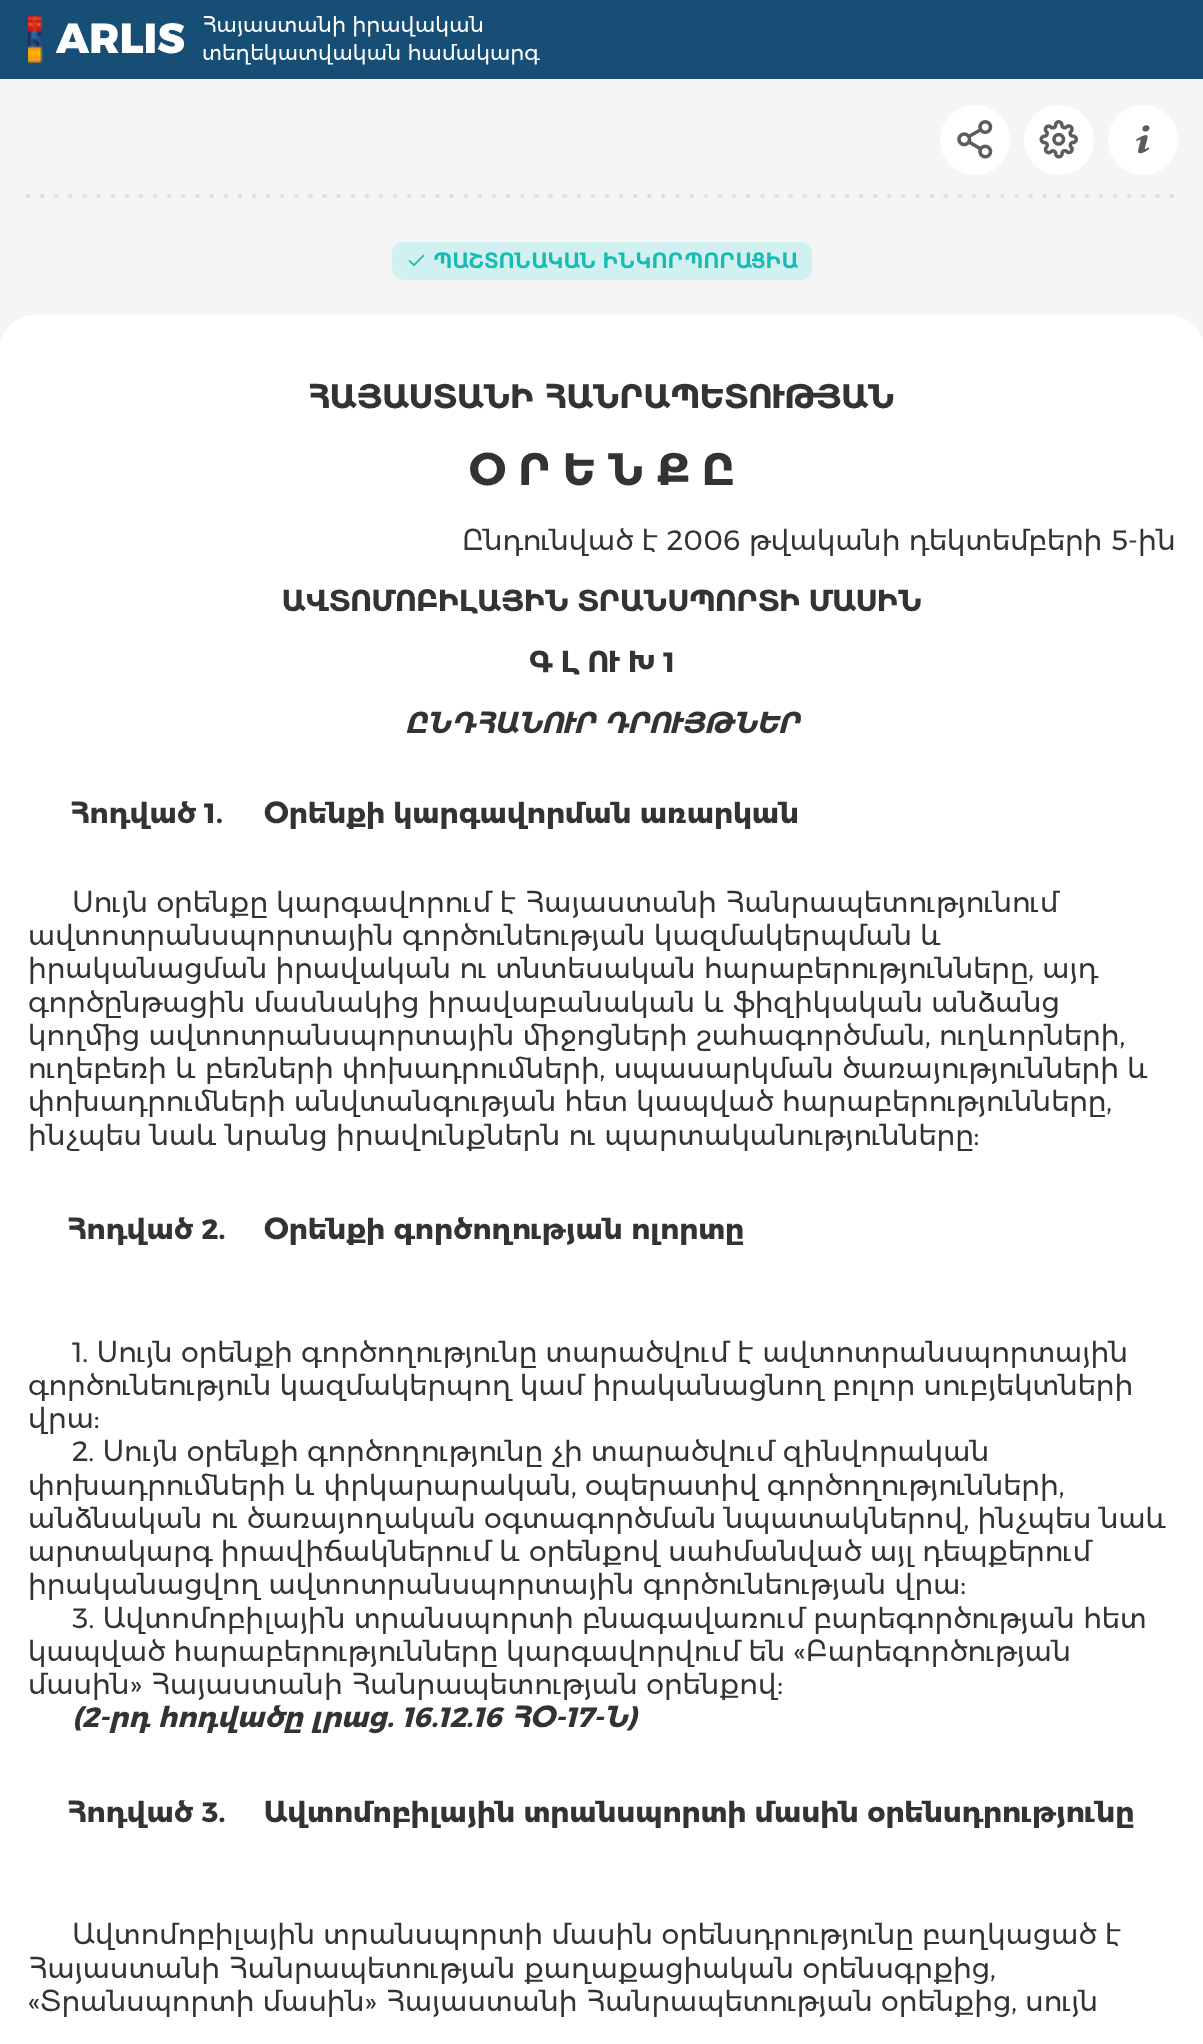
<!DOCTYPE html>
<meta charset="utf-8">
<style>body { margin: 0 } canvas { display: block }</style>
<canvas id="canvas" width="1203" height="2044"></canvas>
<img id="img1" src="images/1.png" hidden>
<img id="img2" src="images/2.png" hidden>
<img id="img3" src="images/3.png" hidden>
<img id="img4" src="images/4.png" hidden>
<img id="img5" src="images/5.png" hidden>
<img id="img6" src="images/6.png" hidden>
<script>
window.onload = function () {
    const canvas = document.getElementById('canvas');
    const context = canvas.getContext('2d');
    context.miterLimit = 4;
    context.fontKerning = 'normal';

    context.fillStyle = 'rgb(255, 255, 255)';
    context.fillRect(0, 0, 1203, 2044);
    context.fillStyle = 'rgb(23, 78, 117)';
    context.fillRect(0, 0, 1203, 79);
    context.drawImage(document.getElementById('img1'), 28, 15, 15, 48);
    context.fillStyle = 'rgb(245, 245, 245)';
    context.fillRect(0, 79, 1203, 271);
    context.fillStyle = 'rgb(255, 255, 255)';
    context.beginPath();
    context.arc(975, 140, 35, 0, 2 * Math.PI);
    context.fill();
    context.drawImage(document.getElementById('img2'), 957, 120, 36, 39);
    context.beginPath();
    context.arc(1059, 140, 35, 0, 2 * Math.PI);
    context.fill();
    context.drawImage(document.getElementById('img3'), 1039, 120, 39, 39);
    context.beginPath();
    context.arc(1143, 140, 35, 0, 2 * Math.PI);
    context.fill();
    context.drawImage(document.getElementById('img4'), 1136, 125, 14, 29);
    context.drawImage(document.getElementById('img5'), 26, 194, 1149, 4);
    context.fillStyle = 'rgb(209, 241, 240)';
    context.beginPath();
    context.roundRect(392, 242, 420, 38, 11);
    context.fill();
    context.drawImage(document.getElementById('img6'), 408, 254, 17, 12);
    context.fillStyle = 'rgb(255, 255, 255)';
    context.beginPath();
    context.moveTo(35, 315);
    context.lineTo(1169, 315);
    context.bezierCurveTo(1188.5, 315, 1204, 330.5, 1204, 350);
    context.lineTo(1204, 2027);
    context.lineTo(0, 2027);
    context.lineTo(0, 350);
    context.bezierCurveTo(0, 330.5, 15.5, 315, 35, 315);
    context.closePath();
    context.fill();
    context.font = '800 42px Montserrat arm';
    context.fillText('ARLIS', 56, 53);
    context.font = '21px Montserrat arm';
    context.fillText('Հայաստանի իրավական', 202, 32);
    context.fillText('տեղեկատվական համակարգ', 202, 60);
    context.letterSpacing = '0.4px';
    context.font = 'bold 21px "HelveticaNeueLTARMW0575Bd"';
    context.fillStyle = 'rgb(24, 187, 180)';
    context.fillText('ՊԱՇՏՈՆԱԿԱՆ ԻՆԿՈՐՊՈՐԱՑԻԱ', 433, 268);
    context.letterSpacing = '0px';
    context.wordSpacing = '1px';
    context.font = 'bold 31.5px Montserrat arm';
    context.fillStyle = 'rgb(51, 51, 51)';
    context.fillText('ՀԱՅԱՍՏԱՆԻ ՀԱՆՐԱՊԵՏՈՒԹՅԱՆ', 308, 408);
    context.wordSpacing = '0px';
    context.font = 'bold 42px Montserrat arm';
    context.fillText('Օ Ր Ե Ն Ք Ը', 469, 485);
    context.font = '28px Montserrat arm';
    context.fillText('Ընդունված է 2006 թվականի դեկտեմբերի 5-ին', 462, 550);
    context.font = 'bold 28px Montserrat arm';
    context.fillText('ԱՎՏՈՄՈԲԻԼԱՅԻՆ ՏՐԱՆՍՊՈՐՏԻ ՄԱՍԻՆ', 282, 611);
    context.fillText('Գ Լ ՈՒ Խ 1', 529, 672);
    context.font = 'italic bold 28px Montserrat arm';
    context.fillText('ԸՆԴՀԱՆՈՒՐ ԴՐՈՒՅԹՆԵՐ', 405, 733);
    context.font = 'bold 28px Montserrat arm';
    context.fillText('Հոդված 1.', 70, 823);
    context.fillText('Օրենքի կարգավորման առարկան', 264, 823);
    context.font = '28px Montserrat arm';
    context.fillText('Սույն օրենքը կարգավորում է Հայաստանի Հանրապետությունում', 72, 912);
    context.fillText('ավտոտրանսպորտային գործունեության կազմակերպման և', 28, 945);
    context.fillText('իրականացման իրավական ու տնտեսական հարաբերությունները, այդ', 28, 978);
    context.fillText('գործընթացին մասնակից իրավաբանական և ֆիզիկական անձանց', 28, 1012);
    context.fillText('կողմից ավտոտրանսպորտային միջոցների շահագործման, ուղևորների,', 28, 1045);
    context.fillText('ուղեբեռի և բեռների փոխադրումների, սպասարկման ծառայությունների և', 28, 1078);
    context.fillText('փոխադրումների անվտանգության հետ կապված հարաբերությունները,', 28, 1111);
    context.fillText('ինչպես նաև նրանց իրավունքներն ու պարտականությունները:', 28, 1145);
    context.font = 'bold 28px Montserrat arm';
    context.fillText('Հոդված 2.', 67, 1239);
    context.fillText('Օրենքի գործողության ոլորտը', 264, 1239);
    context.font = '28px Montserrat arm';
    context.fillText('1. Սույն օրենքի գործողությունը տարածվում է ավտոտրանսպորտային', 72, 1362);
    context.fillText('գործունեություն կազմակերպող կամ իրականացնող բոլոր սուբյեկտների', 28, 1395);
    context.fillText('վրա:', 28, 1428);
    context.fillText('2. Սույն օրենքի գործողությունը չի տարածվում զինվորական', 72, 1461);
    context.fillText('փոխադրումների և փրկարարական, օպերատիվ գործողությունների,', 28, 1495);
    context.fillText('անձնական ու ծառայողական օգտագործման նպատակներով, ինչպես նաև', 28, 1528);
    context.fillText('արտակարգ իրավիճակներում և օրենքով սահմանված այլ դեպքերում', 28, 1561);
    context.fillText('իրականացվող ավտոտրանսպորտային գործունեության վրա:', 28, 1594);
    context.fillText('3. Ավտոմոբիլային տրանսպորտի բնագավառում բարեգործության հետ', 72, 1628);
    context.fillText('կապված հարաբերությունները կարգավորվում են «Բարեգործության', 28, 1661);
    context.fillText('մասին» Հայաստանի Հանրապետության օրենքով:', 28, 1694);
    context.font = 'italic bold 28px Montserrat arm';
    context.fillText('(2-րդ հոդվածը լրաց. 16.12.16 ՀՕ-17-Ն)', 72, 1727);
    context.font = 'bold 28px Montserrat arm';
    context.fillText('Հոդված 3.', 67, 1822);
    context.fillText('Ավտոմոբիլային տրանսպորտի մասին օրենսդրությունը', 264, 1822);
    context.font = '28px Montserrat arm';
    context.fillText('Ավտոմոբիլային տրանսպորտի մասին օրենսդրությունը բաղկացած է', 72, 1944);
    context.fillText('Հայաստանի Հանրապետության քաղաքացիական օրենսգրքից,', 28, 1978);
    context.fillText('«Տրանսպորտի մասին» Հայաստանի Հանրապետության օրենքից, սույն', 28, 2011);
};
</script>
